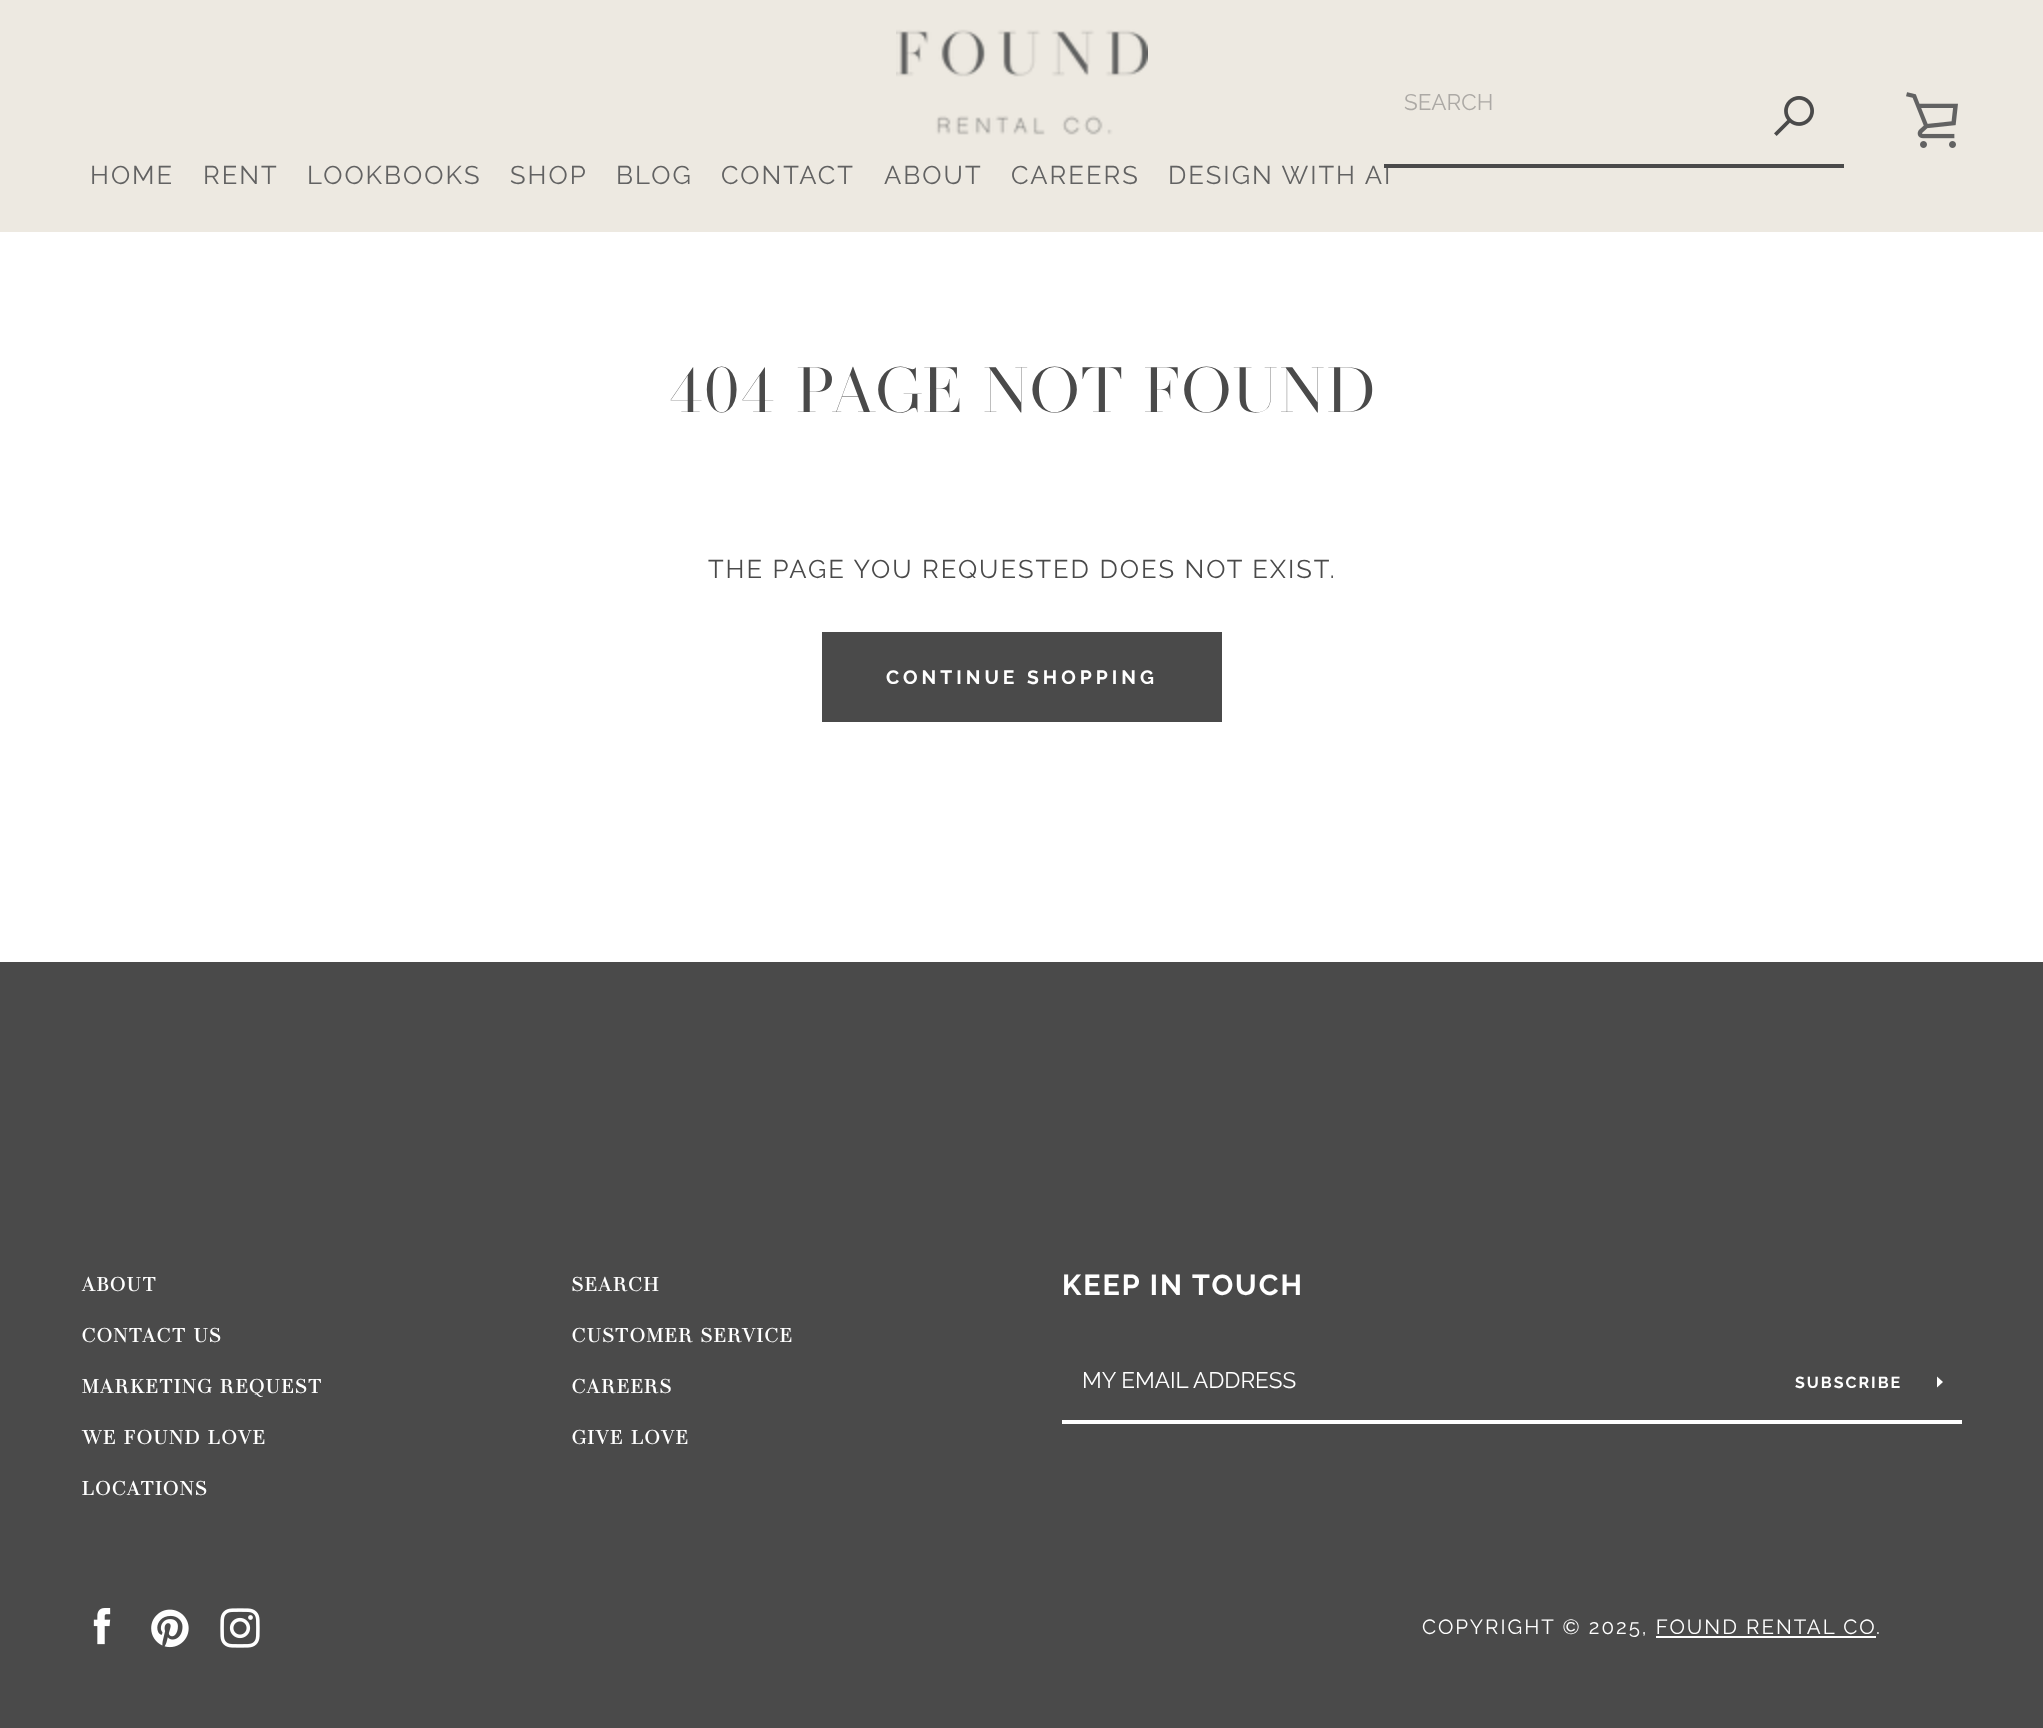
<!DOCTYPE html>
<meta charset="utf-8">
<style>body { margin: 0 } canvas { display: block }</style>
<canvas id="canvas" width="2043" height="1728"></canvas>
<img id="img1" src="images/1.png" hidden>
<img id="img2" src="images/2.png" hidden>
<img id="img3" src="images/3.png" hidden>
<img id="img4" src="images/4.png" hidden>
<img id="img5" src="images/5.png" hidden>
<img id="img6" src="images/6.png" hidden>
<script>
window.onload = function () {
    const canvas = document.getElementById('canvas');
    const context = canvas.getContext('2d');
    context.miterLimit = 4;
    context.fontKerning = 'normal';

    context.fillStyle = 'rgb(74, 74, 74)';
    context.fillRect(0, 0, 2043, 1728);
    context.fillStyle = 'rgb(255, 255, 255)';
    context.fillRect(0, 232, 2043, 730);
    context.fillStyle = 'rgb(237, 233, 225)';
    context.fillRect(0, 0, 2043, 232);
    context.drawImage(document.getElementById('img1'), 896, 29, 252, 106);
    context.drawImage(document.getElementById('img2'), 1774, 96, 40, 40);
    context.drawImage(document.getElementById('img3'), 1906, 92, 52, 56);
    context.fillStyle = 'rgb(74, 74, 74)';
    context.fillRect(822, 632, 400, 90);
    context.fillStyle = 'rgb(255, 255, 255)';
    context.fillRect(1062, 1420, 900, 4);
    context.beginPath();
    context.moveTo(1943, 1382);
    context.lineTo(1937, 1387.5);
    context.lineTo(1937, 1376.5);
    context.closePath();
    context.fill();
    context.drawImage(document.getElementById('img4'), 93, 1608, 18, 37);
    context.drawImage(document.getElementById('img5'), 151, 1609, 38, 39);
    context.drawImage(document.getElementById('img6'), 220, 1608, 40, 40);
    context.fillRect(1656, 1636, 220, 2);
    context.font = '22.5px Raleway';
    context.fillStyle = 'rgb(172, 169, 165)';
    context.fillText('SEARCH', 1404, 110);
    context.letterSpacing = '2px';
    context.font = '25.6px Raleway';
    context.fillStyle = 'rgb(98, 98, 98)';
    context.fillText('HOME', 90, 184);
    context.fillText('RENT', 203, 184);
    context.fillText('LOOKBOOKS', 307, 184);
    context.fillText('SHOP', 510, 184);
    context.fillText('BLOG', 616, 184);
    context.fillText('CONTACT', 721, 184);
    context.fillText('ABOUT', 884, 184);
    context.fillText('CAREERS', 1011, 184);
    context.fillText('DESIGN WITH AI', 1168, 184);
    context.fillStyle = 'rgb(74, 74, 74)';
    context.fillRect(1384, 164, 460, 4);
    context.font = '64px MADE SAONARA';
    context.fillText('404 PAGE NOT FOUND', 668, 412);
    context.font = '25.6px Raleway';
    context.fillText('THE PAGE YOU REQUESTED DOES NOT EXIST.', 708, 578);
    context.letterSpacing = '4px';
    context.font = 'bold 19.25px Raleway';
    context.fillStyle = 'rgb(255, 255, 255)';
    context.fillText('CONTINUE SHOPPING', 886, 684);
    context.letterSpacing = '2px';
    context.font = 'bold 19.25px MADE SAONARA';
    context.fillText('ABOUT', 82, 1291);
    context.fillText('CONTACT US', 82, 1342);
    context.fillText('MARKETING REQUEST', 82, 1393);
    context.fillText('WE FOUND LOVE', 82, 1444);
    context.fillText('LOCATIONS', 82, 1495);
    context.fillText('SEARCH', 572, 1291);
    context.fillText('CUSTOMER SERVICE', 572, 1342);
    context.fillText('CAREERS', 572, 1393);
    context.fillText('GIVE LOVE', 572, 1444);
    context.font = 'bold 28.75px Raleway';
    context.fillText('KEEP IN TOUCH', 1062, 1295);
    context.letterSpacing = '0px';
    context.font = '22.5px Raleway';
    context.fillText('MY EMAIL ADDRESS', 1082, 1388);
    context.letterSpacing = '2px';
    context.font = 'bold 16px Raleway';
    context.fillText('SUBSCRIBE', 1795, 1388);
    context.font = '20.5px Raleway';
    context.fillText('COPYRIGHT © 2025, FOUND RENTAL CO', 1422, 1634);
    context.fillText('.', 1876, 1634);
};
</script>
